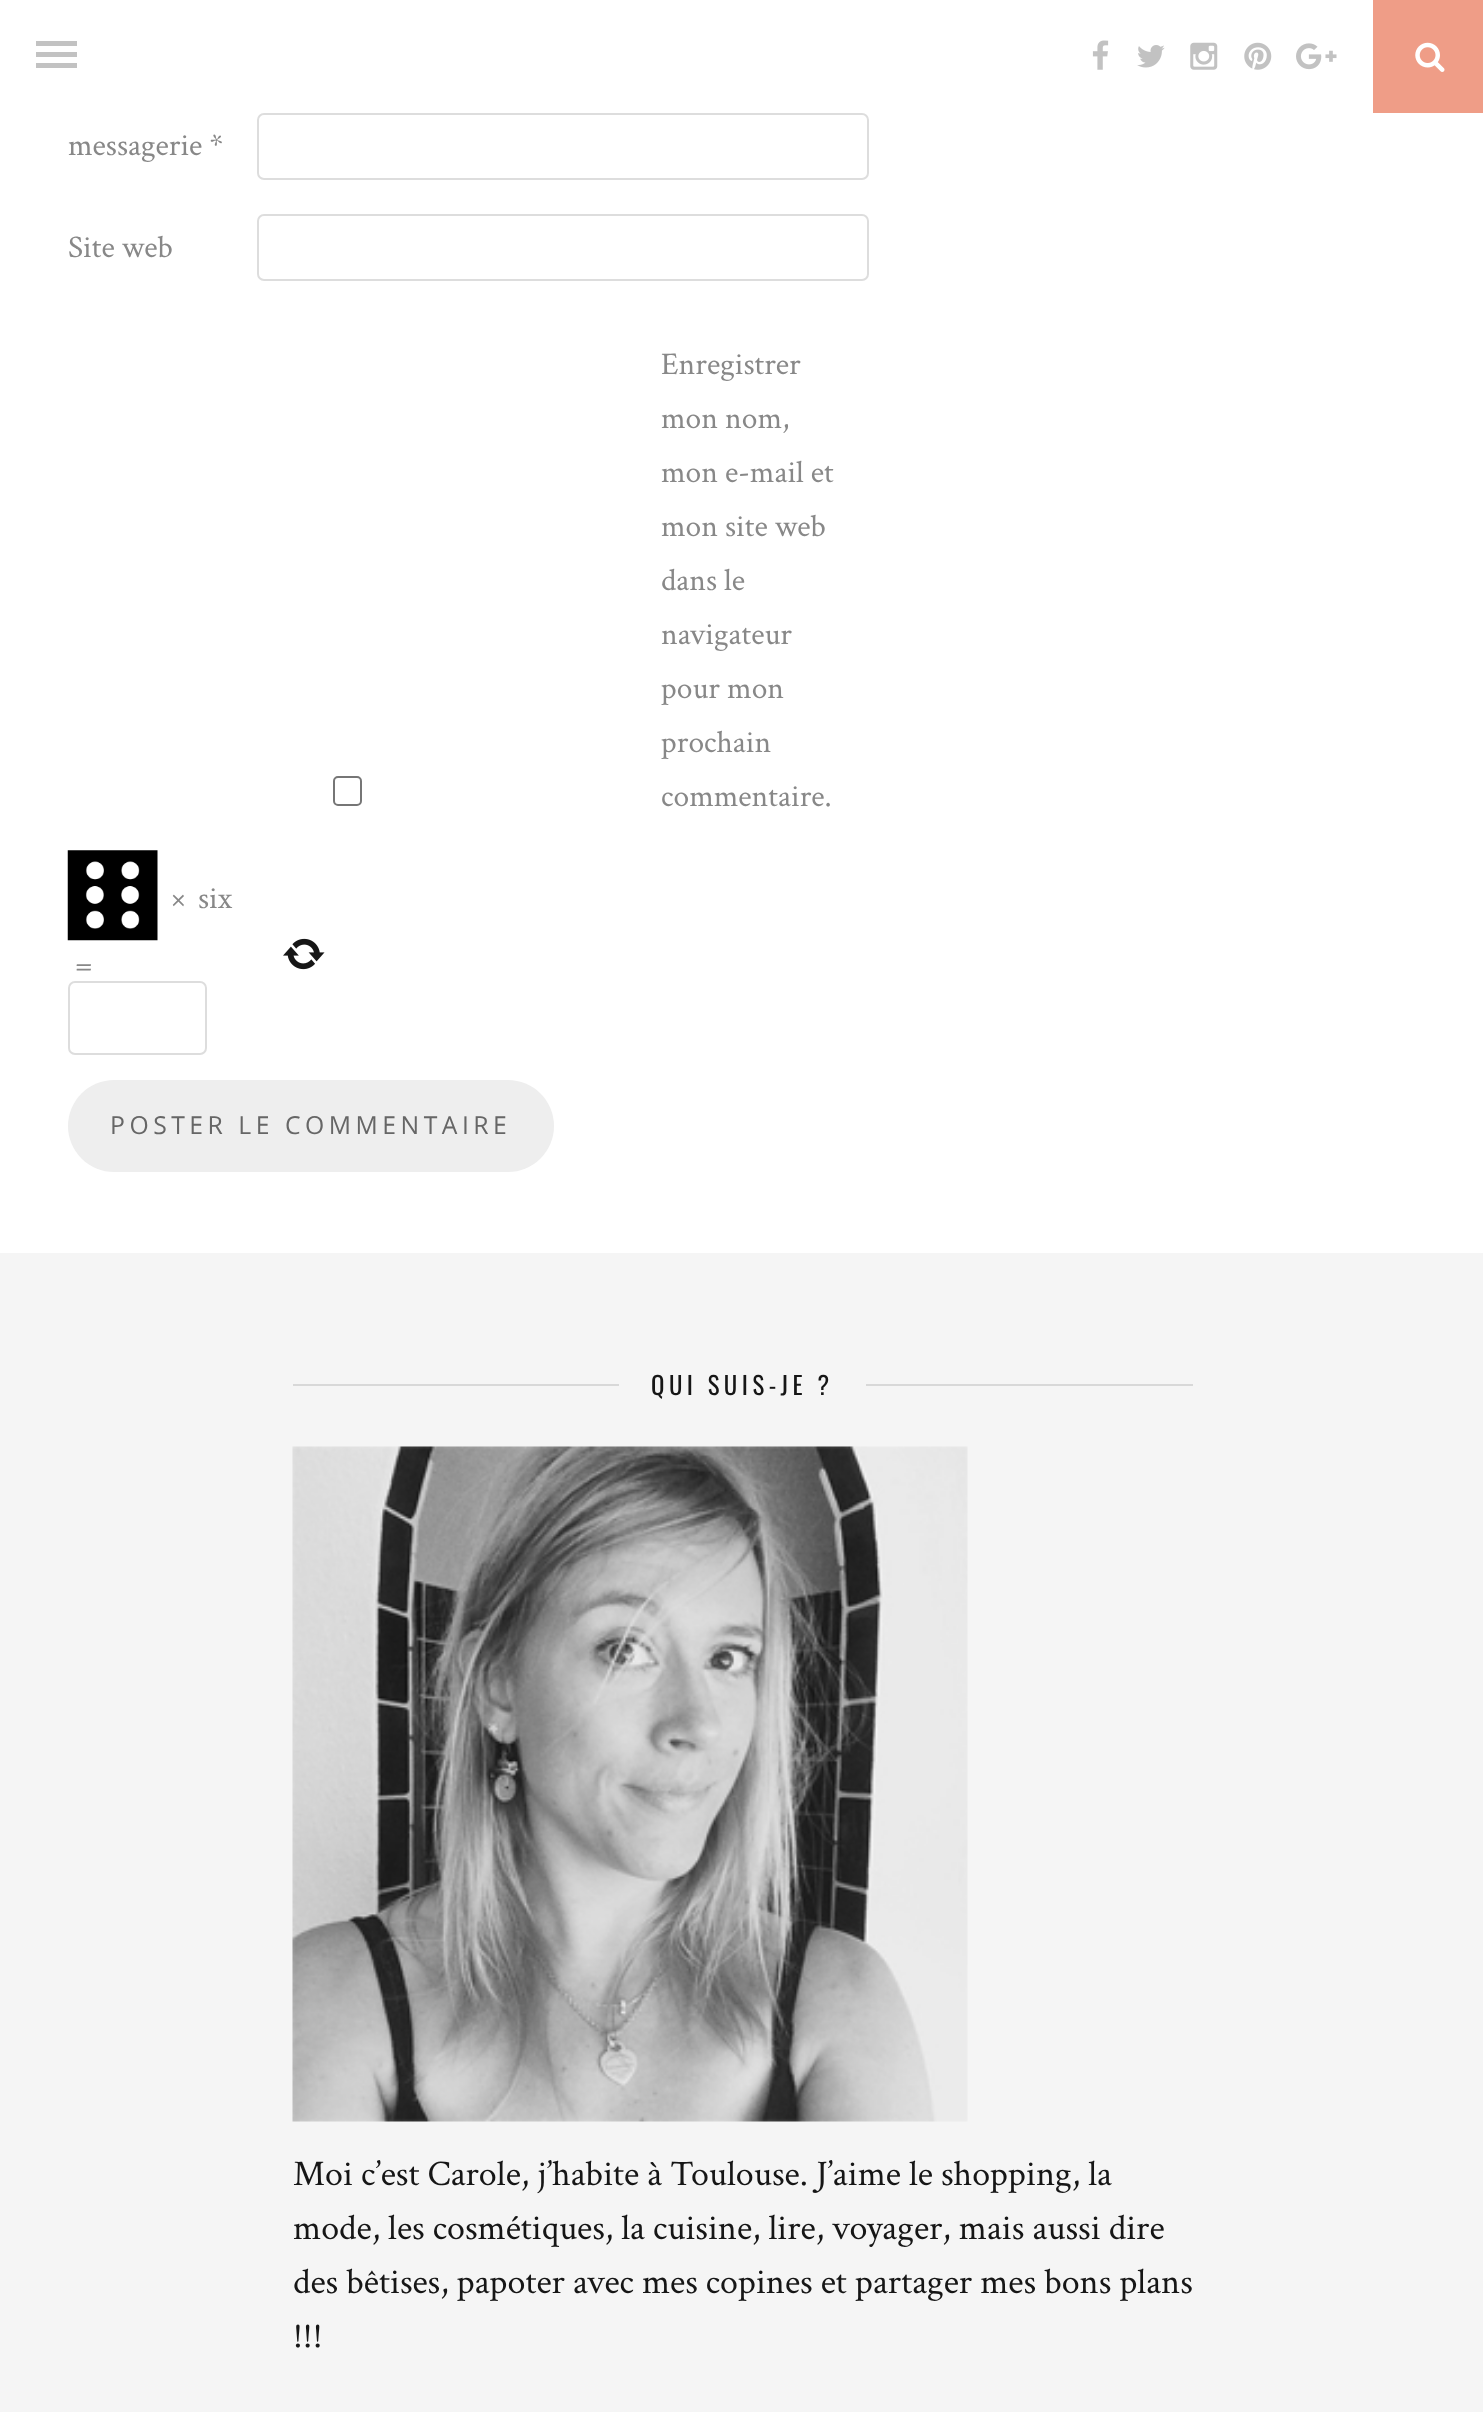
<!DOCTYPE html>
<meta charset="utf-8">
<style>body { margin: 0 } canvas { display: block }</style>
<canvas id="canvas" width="1483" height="2412"></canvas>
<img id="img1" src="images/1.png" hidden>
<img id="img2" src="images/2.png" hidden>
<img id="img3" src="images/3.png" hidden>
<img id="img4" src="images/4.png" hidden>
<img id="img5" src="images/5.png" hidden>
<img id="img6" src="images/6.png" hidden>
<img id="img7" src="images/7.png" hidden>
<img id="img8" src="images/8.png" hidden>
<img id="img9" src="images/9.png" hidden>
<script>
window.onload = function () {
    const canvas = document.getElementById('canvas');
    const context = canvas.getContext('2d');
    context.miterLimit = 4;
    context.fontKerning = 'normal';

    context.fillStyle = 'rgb(245, 245, 245)';
    context.fillRect(0, 0, 1483, 2412);
    context.fillStyle = 'rgb(255, 255, 255)';
    context.fillRect(0, 0, 1373, 113);
    context.fillStyle = 'rgb(194, 194, 194)';
    context.fillRect(36, 41, 41, 5);
    context.fillRect(36, 52, 41, 5);
    context.fillRect(36, 63, 41, 5);
    context.drawImage(document.getElementById('img1'), 1092, 40, 17, 30);
    context.drawImage(document.getElementById('img2'), 1137, 45, 28, 23);
    context.drawImage(document.getElementById('img3'), 1190, 42, 28, 28);
    context.drawImage(document.getElementById('img4'), 1244, 42, 28, 28);
    context.drawImage(document.getElementById('img5'), 1296, 43, 41, 27);
    context.fillStyle = 'rgb(239, 157, 135)';
    context.fillRect(1373, 0, 110, 113);
    context.drawImage(document.getElementById('img6'), 1415, 42, 30, 30);
    context.fillStyle = 'rgb(255, 255, 255)';
    context.fillRect(0, 113, 1483, 1140);
    context.beginPath();
    context.roundRect(258, 114, 610, 65, 6);
    context.strokeStyle = 'rgb(221, 221, 221)';
    context.lineWidth = 2;
    context.stroke();
    context.beginPath();
    context.roundRect(258, 215, 610, 65, 6);
    context.stroke();
    context.beginPath();
    context.roundRect(334, 777, 27, 28, 4);
    context.strokeStyle = 'rgb(118, 118, 118)';
    context.stroke();
    context.drawImage(document.getElementById('img7'), 67, 850, 91, 91);
    context.beginPath();
    context.roundRect(69, 982, 137, 72, 6);
    context.strokeStyle = 'rgb(221, 221, 221)';
    context.stroke();
    context.drawImage(document.getElementById('img8'), 283, 938, 42, 32);
    context.fillStyle = 'rgb(238, 238, 238)';
    context.beginPath();
    context.roundRect(68, 1080, 486, 92, 46);
    context.fill();
    context.fillStyle = 'rgb(216, 216, 216)';
    context.fillRect(293, 1384, 326, 2);
    context.fillRect(866, 1384, 327, 2);
    context.drawImage(document.getElementById('img9'), 292, 1446, 676, 676);
    context.font = '31.5px Crimson Text';
    context.fillStyle = 'rgb(136, 136, 136)';
    context.fillText('messagerie *', 68, 155);
    context.fillText('Site web', 68, 257);
    context.fillText('Enregistrer', 661, 374);
    context.fillText('mon nom,', 661, 428);
    context.fillText('mon e-mail et', 661, 482);
    context.fillText('mon site web', 661, 536);
    context.fillText('dans le', 661, 590);
    context.fillText('navigateur', 661, 644);
    context.fillText('pour mon', 661, 698);
    context.fillText('prochain', 661, 752);
    context.fillText('commentaire.', 661, 806);
    context.fillText('×', 172, 908);
    context.fillText('six', 198, 908);
    context.fillText('=', 75, 974);
    context.letterSpacing = '4.5px';
    context.font = '24.75px Open Sans';
    context.fillStyle = 'rgb(102, 102, 102)';
    context.fillText('POSTER LE COMMENTAIRE', 110, 1134);
    context.font = '24.75px Oswald';
    context.fillStyle = 'rgb(22, 22, 22)';
    context.fillText('QUI SUIS-JE ?', 651, 1395);
    context.letterSpacing = '0px';
    context.font = '36px Crimson Text';
    context.fillText('Moi c’est Carole, j’habite à Toulouse. J’aime le shopping, la', 293, 2185);
    context.fillText('mode, les cosmétiques, la cuisine, lire, voyager, mais aussi dire', 293, 2239);
    context.fillText('des bêtises, papoter avec mes copines et partager mes bons plans', 293, 2293);
    context.fillText('!!!', 293, 2347);
};
</script>
